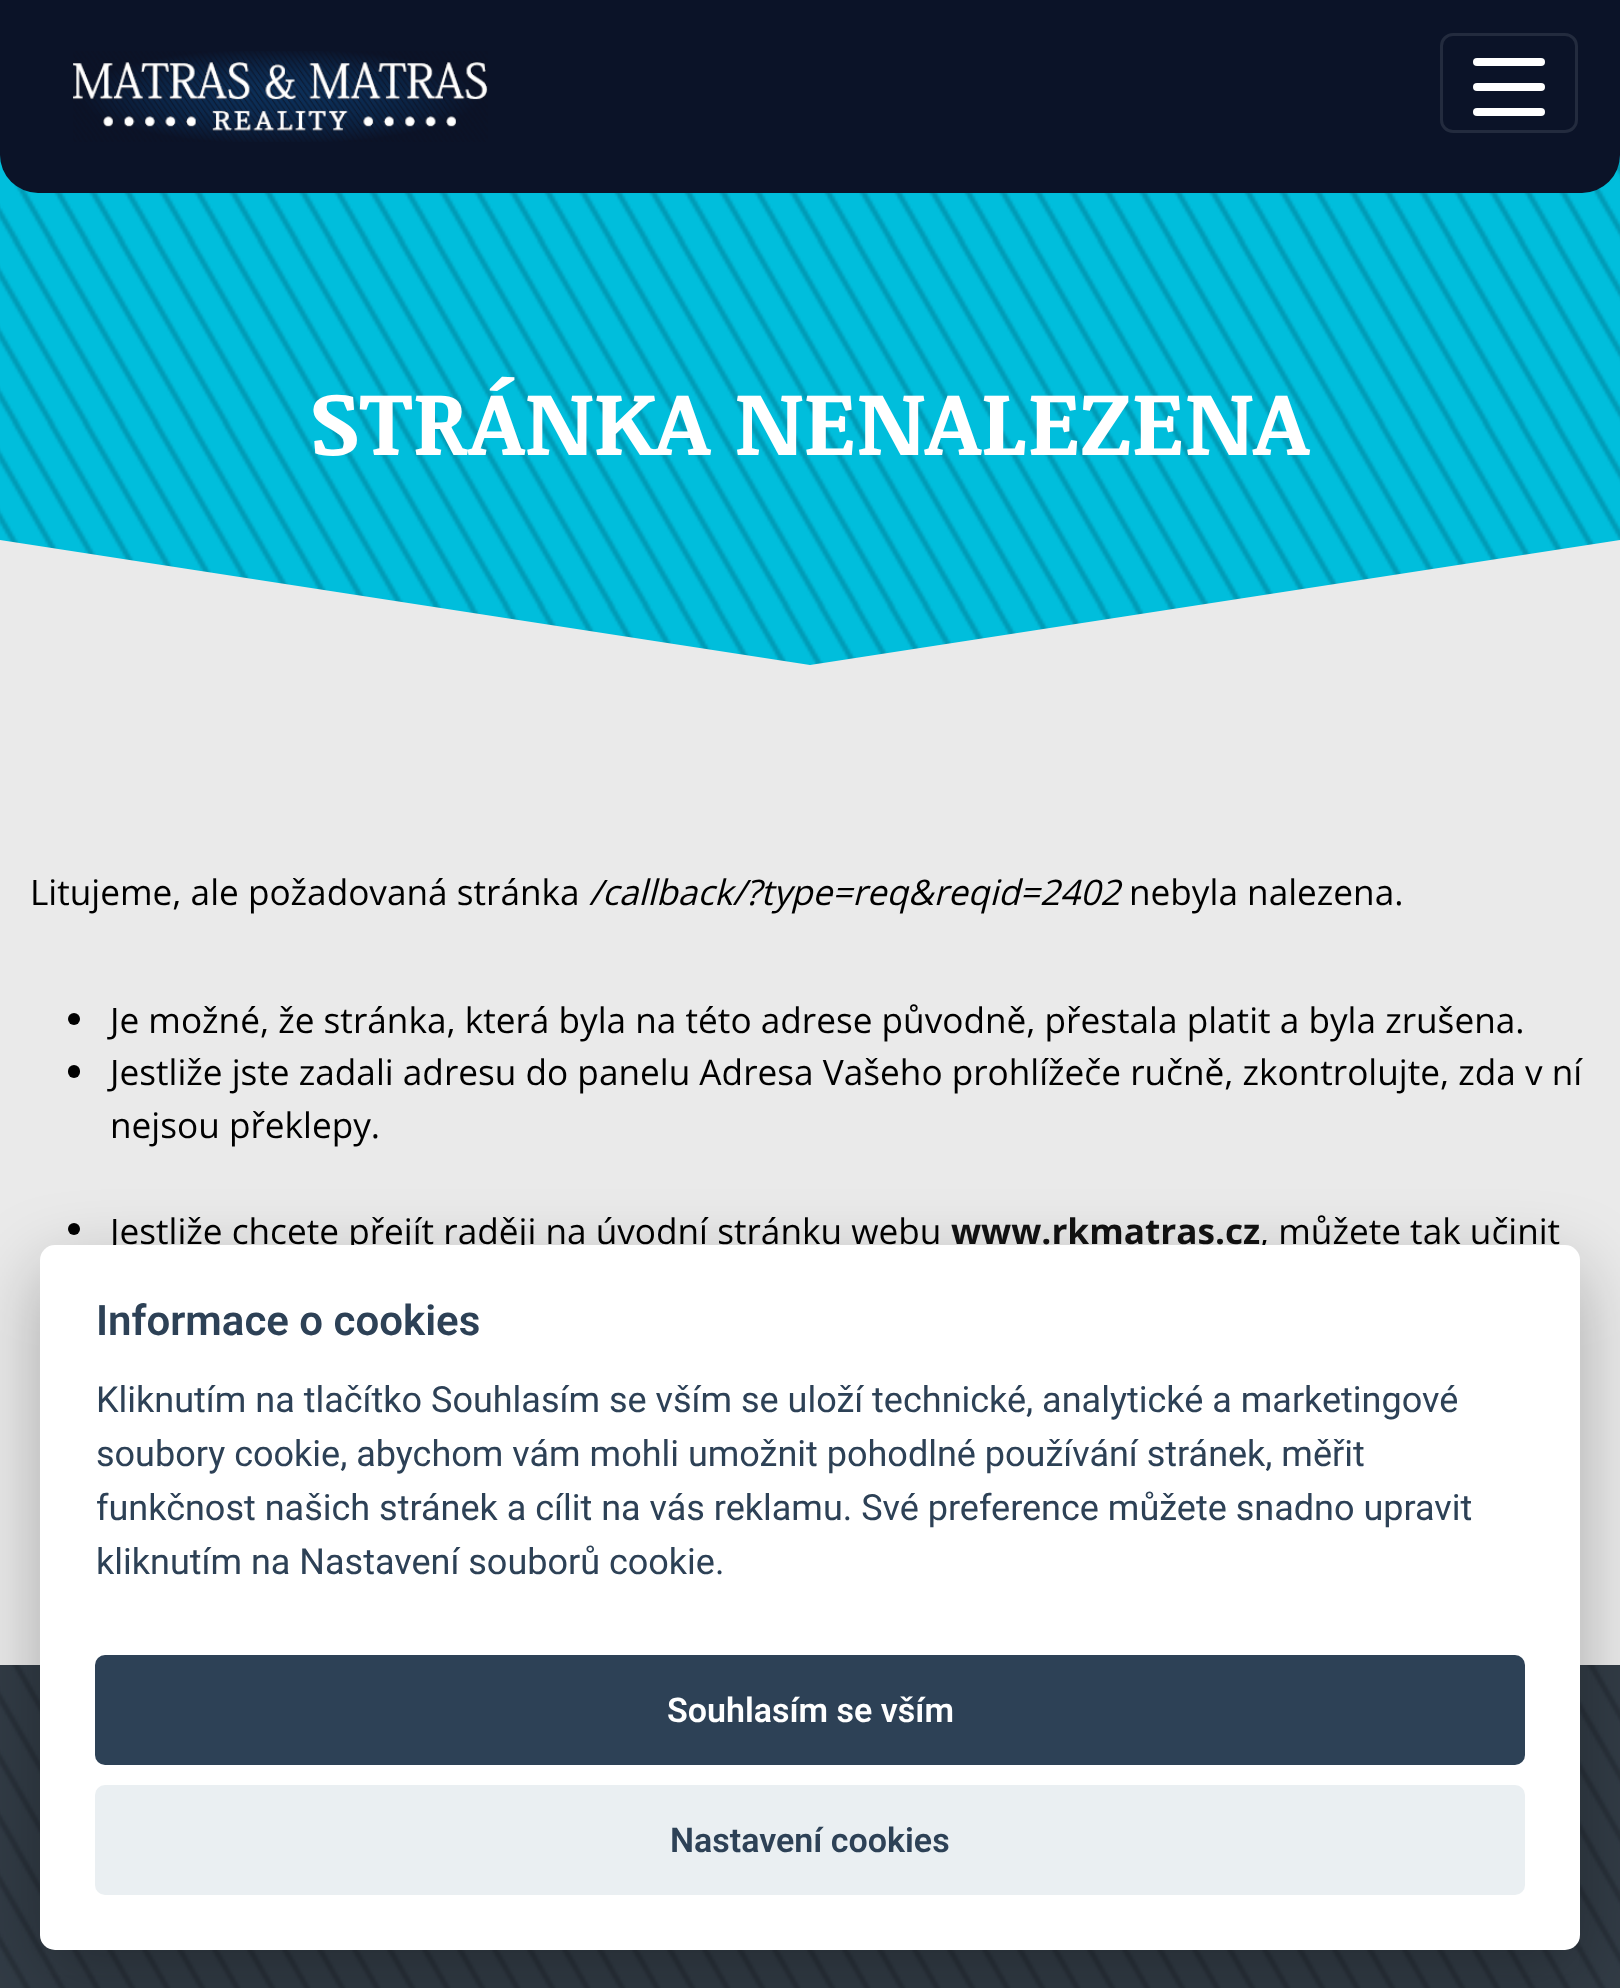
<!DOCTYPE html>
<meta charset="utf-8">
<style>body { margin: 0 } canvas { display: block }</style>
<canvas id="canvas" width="1620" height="1988"></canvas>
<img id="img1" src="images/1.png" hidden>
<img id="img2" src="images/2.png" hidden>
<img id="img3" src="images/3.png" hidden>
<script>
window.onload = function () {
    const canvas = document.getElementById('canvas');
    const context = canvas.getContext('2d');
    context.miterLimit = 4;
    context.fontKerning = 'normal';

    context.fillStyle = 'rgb(234, 234, 234)';
    context.fillRect(0, 0, 1620, 1988);
    context.drawImage(document.getElementById('img1'), 0, 155, 1620, 510);
    context.fillStyle = 'rgb(11, 19, 40)';
    context.beginPath();
    context.roundRect(0, 0, 1620, 193, [0, 0, 38, 38]);
    context.fill();
    context.drawImage(document.getElementById('img2'), 73, 51, 415, 91);
    context.beginPath();
    context.roundRect(1441.5, 34.5, 135, 97, 11.5);
    context.strokeStyle = 'rgb(35, 43, 62)';
    context.lineWidth = 3;
    context.stroke();
    context.fillStyle = 'rgb(255, 255, 255)';
    context.beginPath();
    context.roundRect(1473, 58, 72, 8, 4);
    context.fill();
    context.beginPath();
    context.roundRect(1473, 83, 72, 8, 4);
    context.fill();
    context.beginPath();
    context.roundRect(1473, 108, 72, 8, 4);
    context.fill();
    context.fillStyle = 'rgb(234, 234, 234)';
    context.beginPath();
    context.moveTo(0, 540);
    context.lineTo(0, 665);
    context.lineTo(1620, 665);
    context.lineTo(1620, 540);
    context.lineTo(810, 665);
    context.closePath();
    context.fill();
    context.fillStyle = 'rgb(0, 0, 0)';
    context.beginPath();
    context.arc(74, 1019, 6, 0, 2 * Math.PI);
    context.fill();
    context.beginPath();
    context.roundRect(68, 1065, 12, 13, 6);
    context.fill();
    context.beginPath();
    context.arc(74, 1229, 6, 0, 2 * Math.PI);
    context.fill();
    context.drawImage(document.getElementById('img3'), 0, 1665, 1620, 323);
    context.fillStyle = 'rgba(2, 2, 3, 0.28)';
    context.filter = 'blur(37.5px)';
    context.beginPath();
    context.roundRect(40, 1270, 1540, 705, 15);
    context.fill();
    context.filter = 'none';
    context.font = 'bold 89.8px Noticia Text';
    context.fillStyle = 'rgb(255, 255, 255)';
    context.fillText('STRÁNKA NENALEZENA', 310, 455);
    context.font = '35.2px Open Sans';
    context.fillStyle = 'rgb(0, 0, 0)';
    context.fillText('Litujeme, ale požadovaná stránka', 30, 905);
    context.font = 'italic 35.2px Open Sans';
    context.fillText('/callback/?type=req&reqid=2402', 589, 905);
    context.font = '35.2px Open Sans';
    context.fillText('nebyla nalezena.', 1129, 905);
    context.fillText('Je možné, že stránka, která byla na této adrese původně, přestala platit a byla zrušena.', 110, 1033);
    context.fillText('Jestliže jste zadali adresu do panelu Adresa Vašeho prohlížeče ručně, zkontrolujte, zda v ní', 110, 1085);
    context.fillText('nejsou překlepy.', 110, 1138);
    context.fillText('Jestliže chcete přejít raději na úvodní stránku webu', 110, 1244);
    context.font = 'bold 35.2px Open Sans';
    context.fillStyle = 'rgb(17, 17, 17)';
    context.fillText('www.rkmatras.cz', 951, 1244);
    context.font = '35.2px Open Sans';
    context.fillStyle = 'rgb(0, 0, 0)';
    context.fillText(', můžete tak učinit', 1260, 1244);
    context.fillStyle = 'rgb(255, 255, 255)';
    context.beginPath();
    context.roundRect(40, 1245, 1540, 705, 15);
    context.fill();
    context.font = '600 42px Roboto';
    context.fillStyle = 'rgb(45, 65, 86)';
    context.fillText('Informace o cookies', 96, 1335);
    context.font = '36px Roboto';
    context.fillText('Kliknutím na tlačítko Souhlasím se vším se uloží technické, analytické a marketingové', 96, 1412);
    context.fillText('soubory cookie, abychom vám mohli umožnit pohodlné používání stránek, měřit', 96, 1466);
    context.fillText('funkčnost našich stránek a cílit na vás reklamu. Své preference můžete snadno upravit', 96, 1520);
    context.fillText('kliknutím na Nastavení souborů cookie.', 96, 1574);
    context.beginPath();
    context.roundRect(95, 1655, 1430, 110, 10);
    context.fill();
    context.font = '600 34px Roboto';
    context.fillStyle = 'rgb(255, 255, 255)';
    context.fillText('Souhlasím se vším', 667, 1722);
    context.fillStyle = 'rgb(234, 239, 242)';
    context.beginPath();
    context.roundRect(95, 1785, 1430, 110, 10);
    context.fill();
    context.fillStyle = 'rgb(45, 65, 86)';
    context.fillText('Nastavení cookies', 670, 1852);
};
</script>
